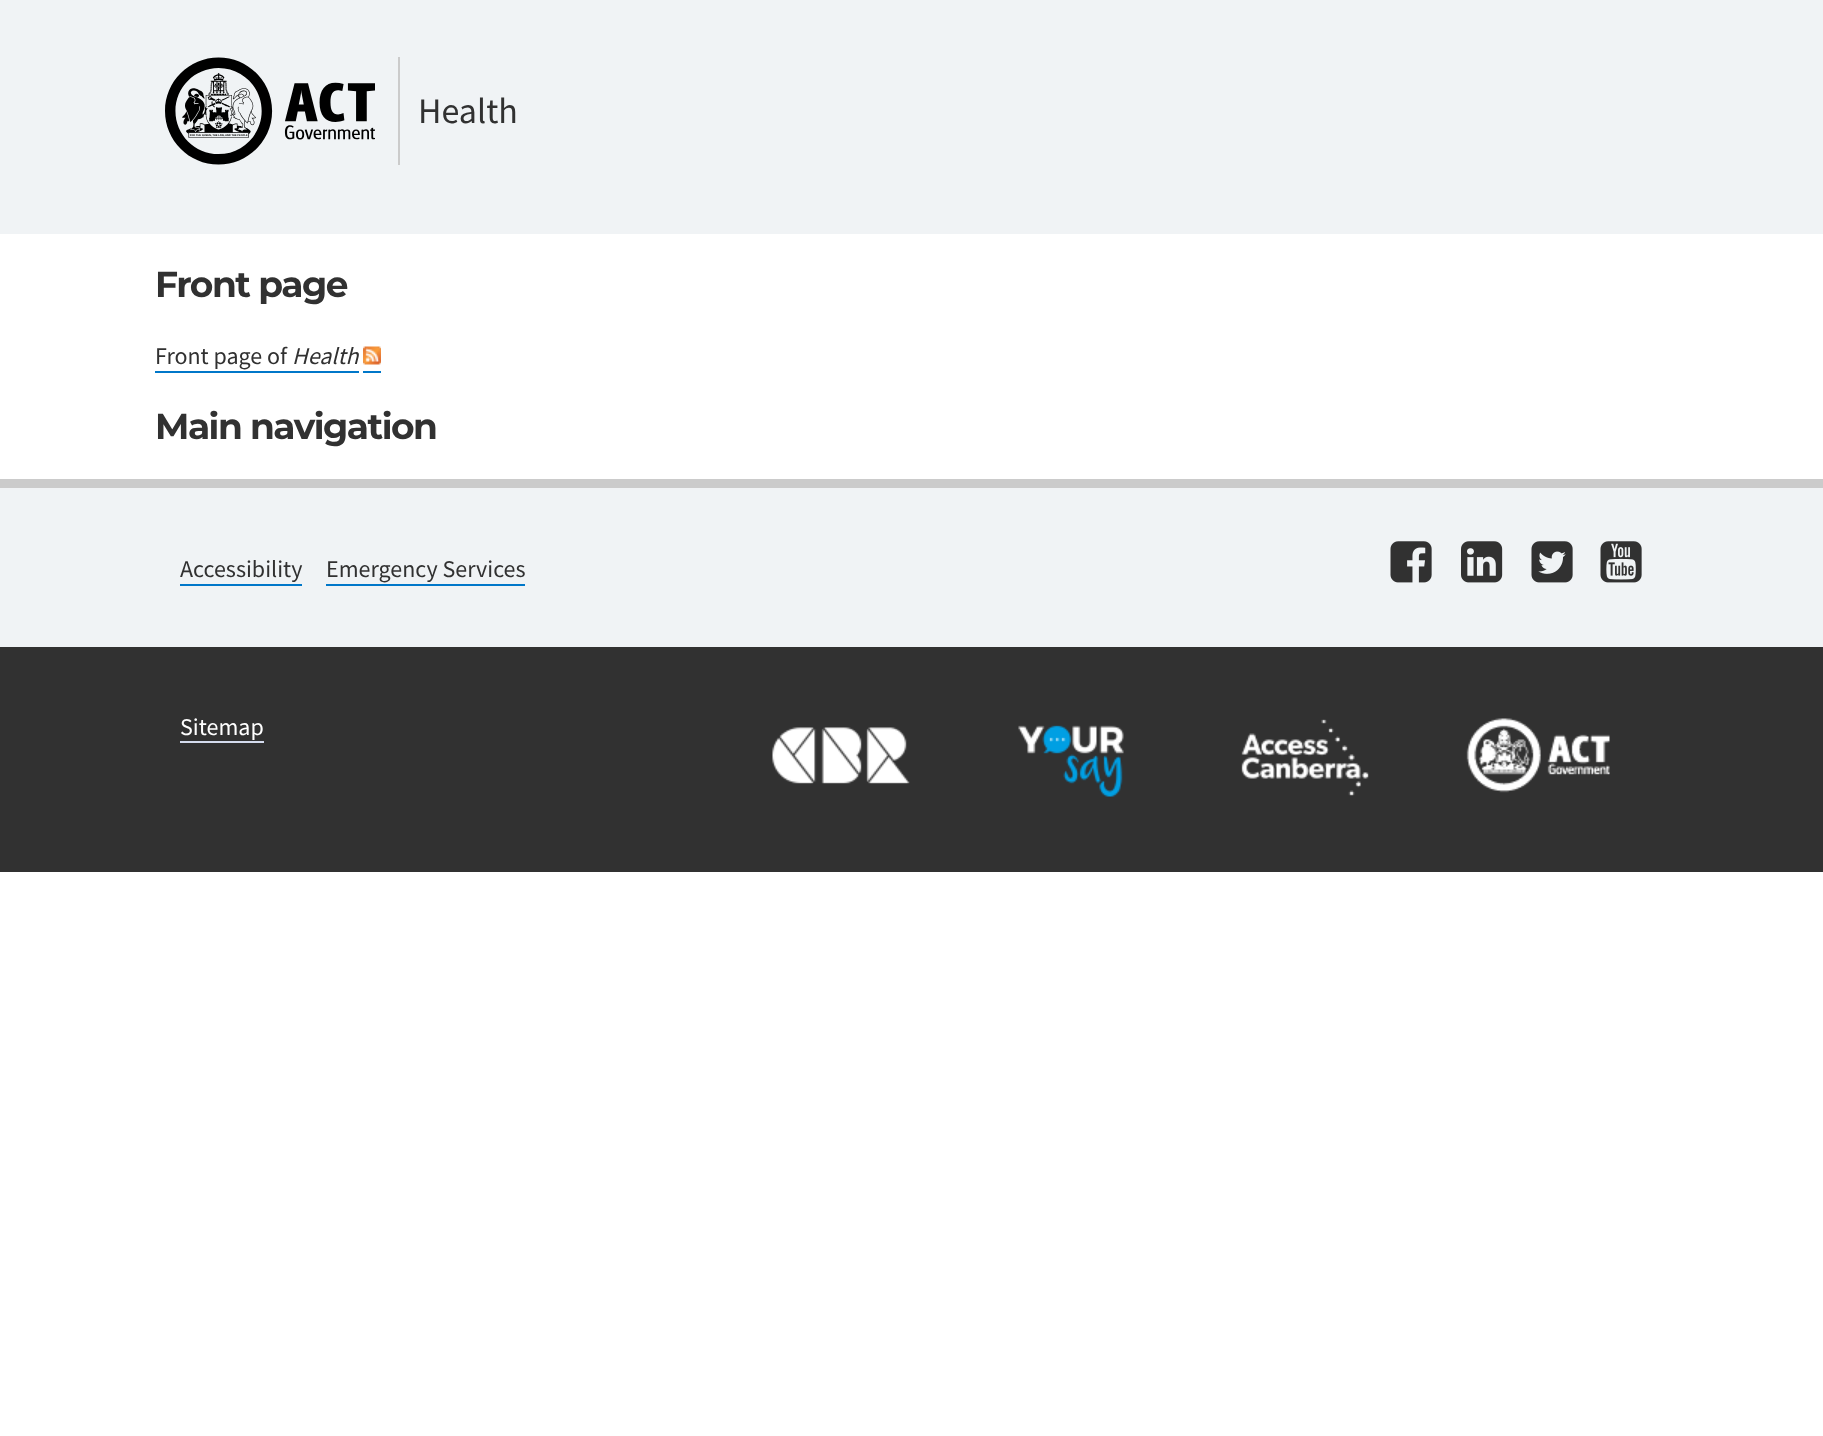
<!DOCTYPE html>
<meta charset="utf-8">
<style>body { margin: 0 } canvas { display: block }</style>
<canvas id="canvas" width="1823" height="1436"></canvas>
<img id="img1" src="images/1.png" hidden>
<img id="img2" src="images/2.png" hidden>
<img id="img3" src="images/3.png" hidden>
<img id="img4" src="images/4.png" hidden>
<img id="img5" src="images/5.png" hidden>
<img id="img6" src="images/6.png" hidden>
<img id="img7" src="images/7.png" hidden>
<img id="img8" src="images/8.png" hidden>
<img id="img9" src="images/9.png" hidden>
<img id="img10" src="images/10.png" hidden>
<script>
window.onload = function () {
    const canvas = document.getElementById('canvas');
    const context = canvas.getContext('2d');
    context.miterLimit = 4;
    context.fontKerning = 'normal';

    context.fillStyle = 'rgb(255, 255, 255)';
    context.fillRect(0, 0, 1823, 1436);
    context.fillStyle = 'rgb(240, 243, 245)';
    context.fillRect(0, 0, 1823, 234);
    context.fillStyle = 'rgb(203, 203, 203)';
    context.fillRect(398, 57, 2, 108);
    context.drawImage(document.getElementById('img1'), 165, 57, 210, 108);
    context.fillStyle = 'rgb(0, 119, 201)';
    context.fillRect(155, 371, 204, 2);
    context.drawImage(document.getElementById('img2'), 363, 346, 18, 19);
    context.fillRect(363, 371, 18, 2);
    context.fillStyle = 'rgb(240, 243, 245)';
    context.fillRect(0, 488, 1823, 159);
    context.fillStyle = 'rgb(203, 203, 203)';
    context.fillRect(0, 479, 1823, 9);
    context.fillStyle = 'rgb(0, 119, 201)';
    context.fillRect(180, 584, 122, 2);
    context.fillRect(326, 584, 199, 2);
    context.drawImage(document.getElementById('img3'), 1390, 541, 42, 42);
    context.drawImage(document.getElementById('img4'), 1461, 541, 42, 42);
    context.drawImage(document.getElementById('img5'), 1531, 541, 42, 42);
    context.drawImage(document.getElementById('img6'), 1600, 541, 42, 42);
    context.fillStyle = 'rgb(49, 49, 49)';
    context.fillRect(0, 647, 1823, 225);
    context.fillStyle = 'rgb(213, 220, 238)';
    context.fillRect(180, 741, 84, 2);
    context.drawImage(document.getElementById('img7'), 772, 727, 138, 57);
    context.drawImage(document.getElementById('img8'), 1018, 725, 106, 72);
    context.drawImage(document.getElementById('img9'), 1241, 719, 128, 77);
    context.drawImage(document.getElementById('img10'), 1466, 718, 144, 75);
    context.font = '36px Source Sans Pro';
    context.fillStyle = 'rgb(49, 49, 49)';
    context.fillText('Health', 418, 123);
    context.letterSpacing = '-1.5px';
    context.font = 'bold 36px Montserrat';
    context.fillText('Front page', 155, 297);
    context.letterSpacing = '0px';
    context.font = '24px Source Sans Pro';
    context.fillText('Front page of', 155, 364);
    context.font = 'italic 24px Source Sans Pro';
    context.fillText('Health', 292, 364);
    context.letterSpacing = '-1.5px';
    context.font = 'bold 36px Montserrat';
    context.fillText('Main navigation', 155, 439);
    context.letterSpacing = '0px';
    context.font = '24px Source Sans Pro';
    context.fillText('Accessibility', 180, 577);
    context.fillText('Emergency Services', 326, 577);
    context.fillStyle = 'rgb(255, 255, 255)';
    context.fillText('Sitemap', 180, 735);
};
</script>
